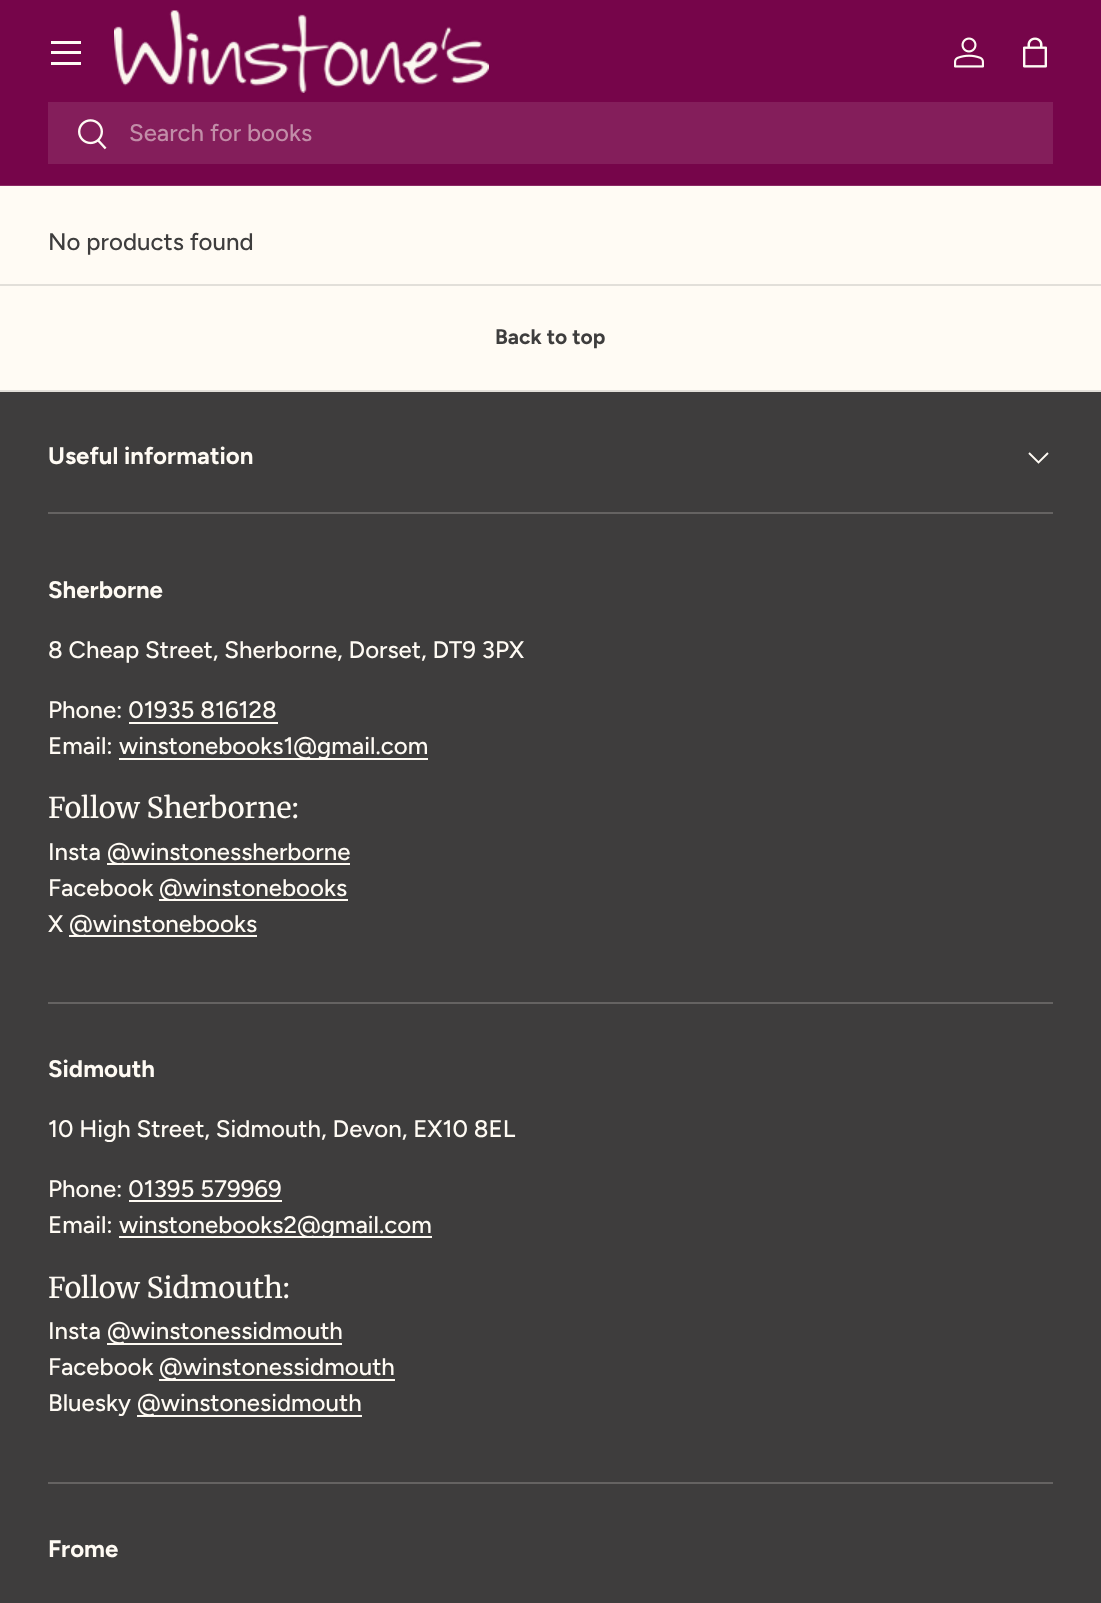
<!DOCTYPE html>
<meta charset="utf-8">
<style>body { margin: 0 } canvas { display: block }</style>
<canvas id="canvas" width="1101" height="1603"></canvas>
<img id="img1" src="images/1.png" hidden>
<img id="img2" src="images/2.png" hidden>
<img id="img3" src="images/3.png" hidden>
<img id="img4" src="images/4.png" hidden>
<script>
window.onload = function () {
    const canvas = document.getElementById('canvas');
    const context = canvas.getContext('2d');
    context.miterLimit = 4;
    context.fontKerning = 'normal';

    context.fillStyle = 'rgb(255, 251, 244)';
    context.fillRect(0, 0, 1101, 1603);
    context.fillStyle = 'rgb(118, 5, 74)';
    context.fillRect(0, 0, 1101, 185);
    context.fillStyle = 'rgb(139, 42, 100)';
    context.fillRect(0, 185, 1101, 1);
    context.fillStyle = 'rgb(255, 251, 244)';
    context.fillRect(51, 41, 30, 3);
    context.fillRect(51, 62, 30, 3);
    context.fillRect(51, 51, 30, 3);
    context.drawImage(document.getElementById('img1'), 114, 10, 375, 83);
    context.drawImage(document.getElementById('img2'), 954, 37, 30, 31);
    context.drawImage(document.getElementById('img3'), 1023, 37, 24, 31);
    context.fillStyle = 'rgb(132, 30, 91)';
    context.fillRect(48, 102, 1005, 62);
    context.drawImage(document.getElementById('img4'), 78, 119, 29, 31);
    context.fillStyle = 'rgb(226, 223, 217)';
    context.fillRect(0, 284, 1101, 2);
    context.fillRect(0, 390, 1101, 2);
    context.fillStyle = 'rgb(62, 61, 61)';
    context.fillRect(0, 392, 1101, 1211);
    context.fillStyle = 'rgb(101, 99, 98)';
    context.fillRect(48, 512, 1005, 2);
    context.beginPath();
    context.moveTo(1048, 453);
    context.lineTo(1038.5, 462.5);
    context.lineTo(1029, 453);
    context.strokeStyle = 'rgb(255, 251, 244)';
    context.lineWidth = 1.9;
    context.stroke();
    context.fillStyle = 'rgb(255, 251, 244)';
    context.fillRect(129, 722, 149, 2);
    context.fillRect(119, 758, 309, 2);
    context.fillRect(107, 863, 243, 2);
    context.fillRect(159, 899, 189, 2);
    context.fillRect(69, 935, 188, 2);
    context.fillStyle = 'rgb(101, 99, 98)';
    context.fillRect(48, 1002, 1005, 2);
    context.fillStyle = 'rgb(255, 251, 244)';
    context.fillRect(129, 1200, 153, 2);
    context.fillRect(119, 1236, 313, 2);
    context.fillRect(107, 1343, 235, 2);
    context.fillRect(159, 1379, 236, 2);
    context.fillRect(137, 1415, 225, 2);
    context.fillStyle = 'rgb(101, 99, 98)';
    context.fillRect(48, 1482, 1005, 2);
    context.font = '500 24px Figtree';
    context.fillStyle = 'rgb(194, 141, 168)';
    context.fillText('Search for books', 129, 141);
    context.fillStyle = 'rgb(62, 61, 61)';
    context.fillText('No products found', 48, 250);
    context.font = 'bold 21px Figtree';
    context.fillText('Back to top', 495, 344);
    context.font = 'bold 24px Figtree';
    context.fillStyle = 'rgb(255, 251, 244)';
    context.fillText('Useful information', 48, 464);
    context.fillText('Sherborne', 48, 598);
    context.font = '500 24px Figtree';
    context.fillText('8 Cheap Street, Sherborne, Dorset, DT9 3PX', 48, 658);
    context.fillText('Phone: 01935 816128', 48, 718);
    context.fillText('Email:', 48, 754);
    context.fillText('winstonebooks1@gmail.com', 119, 754);
    context.font = '28.75px Merriweather';
    context.fillText('Follow Sherborne:', 48, 818);
    context.font = '500 24px Figtree';
    context.fillText('Insta', 48, 860);
    context.fillText('@winstonessherborne', 107, 860);
    context.fillText('Facebook', 48, 896);
    context.fillText('@winstonebooks', 159, 896);
    context.fillText('X', 48, 932);
    context.fillText('@winstonebooks', 69, 932);
    context.font = 'bold 24px Figtree';
    context.fillText('Sidmouth', 48, 1077);
    context.font = '500 24px Figtree';
    context.fillText('10 High Street, Sidmouth, Devon, EX10 8EL', 48, 1137);
    context.fillText('Phone: 01395 579969', 48, 1197);
    context.fillText('Email:', 48, 1233);
    context.fillText('winstonebooks2@gmail.com', 119, 1233);
    context.font = '28.75px Merriweather';
    context.fillText('Follow Sidmouth:', 48, 1298);
    context.font = '500 24px Figtree';
    context.fillText('Insta', 48, 1339);
    context.fillText('@winstonessidmouth', 107, 1339);
    context.fillText('Facebook', 48, 1375);
    context.fillText('@winstonessidmouth', 159, 1375);
    context.fillText('Bluesky', 48, 1411);
    context.fillText('@winstonesidmouth', 137, 1411);
    context.font = 'bold 24px Figtree';
    context.fillText('Frome', 48, 1557);
};
</script>
